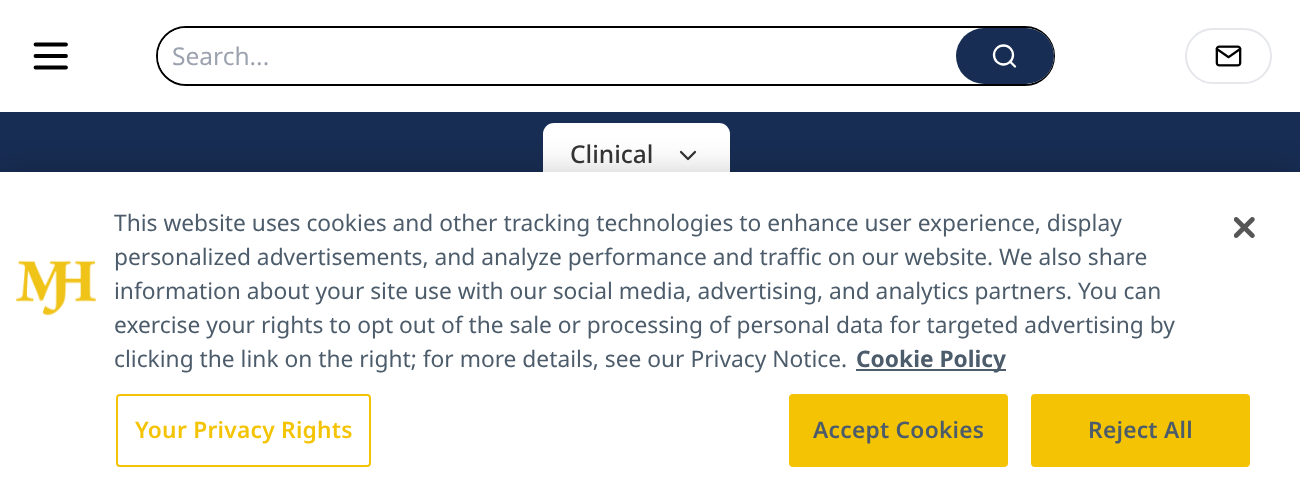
<!DOCTYPE html>
<meta charset="utf-8">
<style>body { margin: 0 } canvas { display: block }</style>
<canvas id="canvas" width="1300" height="504"></canvas>
<img id="img1" src="images/1.png" hidden>
<img id="img2" src="images/2.png" hidden>
<img id="img3" src="images/3.png" hidden>
<script>
window.onload = function () {
    const canvas = document.getElementById('canvas');
    const context = canvas.getContext('2d');
    context.miterLimit = 4;
    context.fontKerning = 'normal';

    context.fillStyle = 'rgb(255, 255, 255)';
    context.fillRect(0, 0, 1300, 504);
    context.beginPath();
    context.moveTo(35.5, 44.5);
    context.lineTo(66, 44.5);
    context.moveTo(35.5, 56);
    context.lineTo(66, 56);
    context.moveTo(35.5, 67.5);
    context.lineTo(66, 67.5);
    context.strokeStyle = 'rgb(0, 0, 0)';
    context.lineWidth = 3.8;
    context.lineCap = 'round';
    context.lineJoin = 'round';
    context.stroke();
    context.beginPath();
    context.roundRect(157, 27, 897, 58, 29);
    context.lineWidth = 2;
    context.lineJoin = 'miter';
    context.stroke();
    context.beginPath();
    context.roundRect(158, 28, 896, 56, 28);
    context.fill();
    context.fillStyle = 'rgb(24, 45, 83)';
    context.beginPath();
    context.roundRect(956, 28, 98, 56, 28);
    context.fill();
    context.beginPath();
    context.arc(1003.5, 55, 9.5, 0, 2 * Math.PI);
    context.strokeStyle = 'rgb(255, 255, 255)';
    context.lineWidth = 2.3;
    context.stroke();
    context.beginPath();
    context.moveTo(1015, 66.5);
    context.lineTo(1010, 61.5);
    context.lineJoin = 'round';
    context.stroke();
    context.beginPath();
    context.roundRect(1186, 29, 85, 54, 27);
    context.strokeStyle = 'rgb(229, 231, 235)';
    context.lineWidth = 2;
    context.lineJoin = 'miter';
    context.stroke();
    context.drawImage(document.getElementById('img1'), 1215, 45, 27, 22);
    context.fillRect(0, 112, 1300, 60);
    context.fillStyle = 'rgb(255, 255, 255)';
    context.beginPath();
    context.roundRect(543, 123, 187, 63, 11);
    context.fill();
    context.beginPath();
    context.moveTo(681, 152);
    context.lineTo(688, 159);
    context.lineTo(695, 152);
    context.strokeStyle = 'rgb(51, 51, 51)';
    context.lineWidth = 2.3;
    context.lineJoin = 'round';
    context.stroke();
    context.fillStyle = 'rgba(0, 0, 0, 0.2)';
    context.filter = 'blur(16px)';
    context.beginPath();
    context.rect(0, 172, 1300, 332);
    context.fill();
    context.filter = 'none';
    context.fillStyle = 'rgb(255, 255, 255)';
    context.fillRect(0, 172, 1300, 332);
    context.drawImage(document.getElementById('img2'), 16, 260, 80, 56);
    context.fillStyle = 'rgb(76, 92, 107)';
    context.fillRect(856, 369, 150, 2);
    context.beginPath();
    context.roundRect(117, 395, 253, 71, 3);
    context.strokeStyle = 'rgb(244, 196, 4)';
    context.lineWidth = 2;
    context.lineJoin = 'miter';
    context.stroke();
    context.fillStyle = 'rgb(244, 196, 4)';
    context.beginPath();
    context.roundRect(790, 395, 217, 71, 3);
    context.fill();
    context.stroke();
    context.beginPath();
    context.roundRect(1032, 395, 217, 71, 3);
    context.fill();
    context.stroke();
    context.drawImage(document.getElementById('img3'), 1234, 217, 21, 21);
    context.font = '24.5px Noto Sans';
    context.fillStyle = 'rgb(156, 163, 175)';
    context.fillText('Search...', 172, 65);
    context.font = '500 24.5px Noto Sans';
    context.fillStyle = 'rgb(51, 51, 51)';
    context.fillText('Clinical', 570, 163);
    context.font = '22.75px Noto Sans';
    context.fillStyle = 'rgb(76, 92, 107)';
    context.fillText('This website uses cookies and other tracking technologies to enhance user experience, display', 114, 231);
    context.fillText('personalized advertisements, and analyze performance and traffic on our website. We also share', 114, 265);
    context.fillText('information about your site use with our social media, advertising, and analytics partners. You can', 114, 299);
    context.fillText('exercise your rights to opt out of the sale or processing of personal data for targeted advertising by', 114, 333);
    context.fillText('clicking the link on the right; for more details, see our Privacy Notice.', 114, 367);
    context.font = 'bold 22.75px Noto Sans';
    context.fillText('Cookie Policy', 856, 367);
    context.letterSpacing = '0.25px';
    context.font = '600 22.75px Noto Sans';
    context.fillStyle = 'rgb(244, 196, 4)';
    context.fillText('Your Privacy Rights', 135, 438);
    context.fillStyle = 'rgb(76, 92, 107)';
    context.fillText('Accept Cookies', 813, 438);
    context.fillText('Reject All', 1088, 438);
};
</script>
